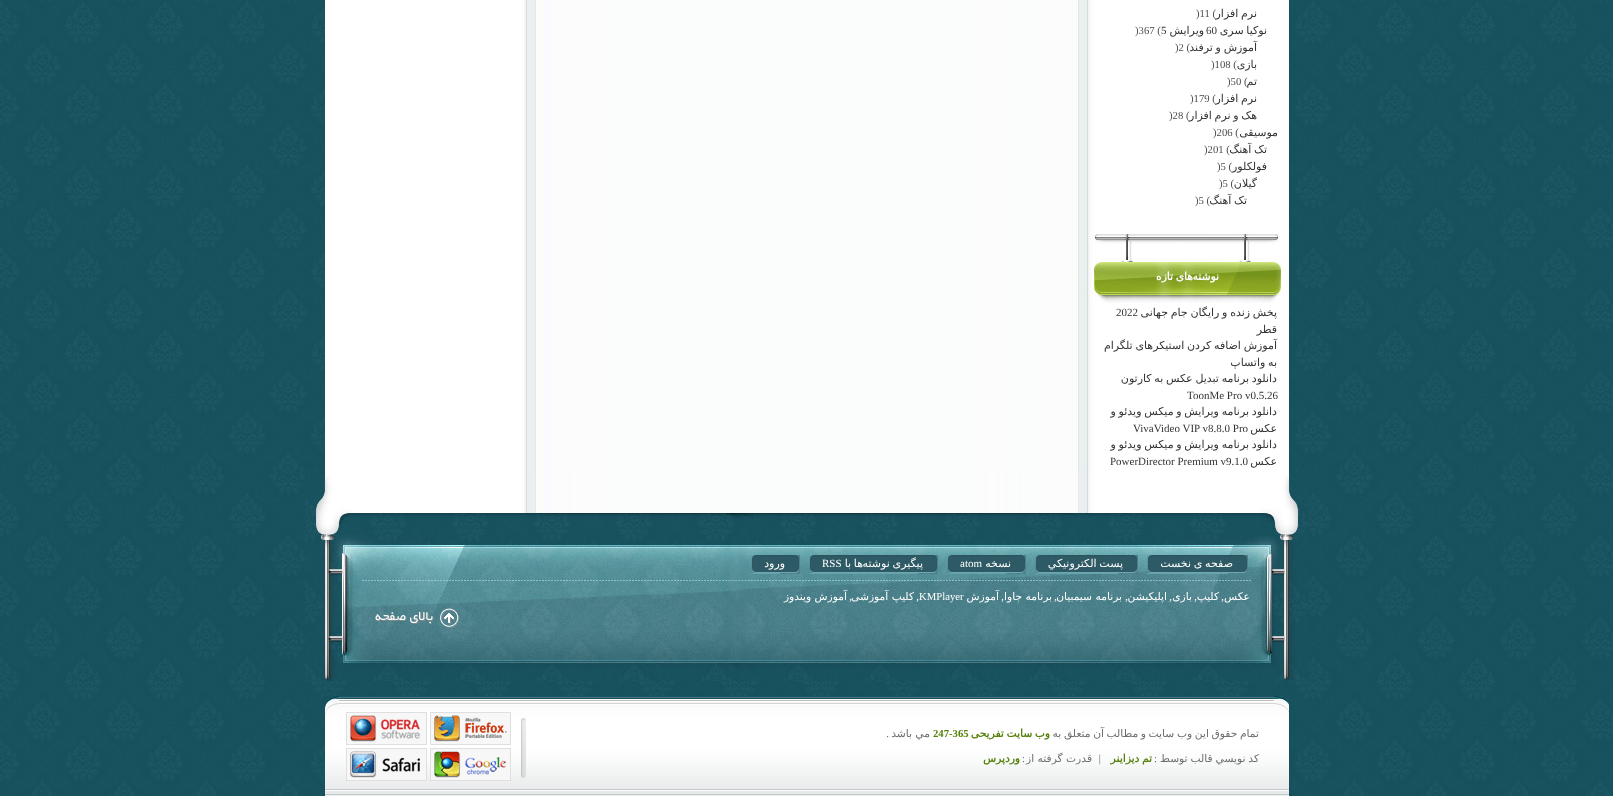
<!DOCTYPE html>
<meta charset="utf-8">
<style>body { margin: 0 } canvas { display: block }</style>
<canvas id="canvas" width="1613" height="796"></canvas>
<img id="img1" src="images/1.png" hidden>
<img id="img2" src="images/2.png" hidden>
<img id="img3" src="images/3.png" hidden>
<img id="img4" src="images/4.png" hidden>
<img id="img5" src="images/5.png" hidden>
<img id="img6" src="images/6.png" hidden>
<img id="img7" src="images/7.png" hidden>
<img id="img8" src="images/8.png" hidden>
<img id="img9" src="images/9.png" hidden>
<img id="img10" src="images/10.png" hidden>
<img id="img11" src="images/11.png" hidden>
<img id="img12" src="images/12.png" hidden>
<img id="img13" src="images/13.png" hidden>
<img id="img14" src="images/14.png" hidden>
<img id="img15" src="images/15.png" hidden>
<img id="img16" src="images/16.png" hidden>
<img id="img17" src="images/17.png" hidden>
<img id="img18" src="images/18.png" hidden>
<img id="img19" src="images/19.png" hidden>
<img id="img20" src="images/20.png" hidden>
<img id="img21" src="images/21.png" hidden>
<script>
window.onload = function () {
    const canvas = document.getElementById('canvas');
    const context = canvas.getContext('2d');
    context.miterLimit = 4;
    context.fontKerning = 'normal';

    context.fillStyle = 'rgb(255, 255, 255)';
    context.fillRect(0, 0, 1613, 796);
    context.drawImage(document.getElementById('img1'), 0, 0, 1613, 796);
    context.drawImage(document.getElementById('img2'), 325, 0, 964, 469);
    context.drawImage(document.getElementById('img3'), 1087, 234, 200, 69);
    context.drawImage(document.getElementById('img4'), 535, 0, 544, 469);
    context.drawImage(document.getElementById('img5'), 305, 469, 1003, 44);
    context.drawImage(document.getElementById('img6'), 305, 513, 1003, 168);
    context.drawImage(document.getElementById('img7'), 1147, 555, 7, 19);
    context.drawImage(document.getElementById('img8'), 1154, 555, 94, 19);
    context.drawImage(document.getElementById('img7'), 1035, 555, 7, 19);
    context.drawImage(document.getElementById('img9'), 1042, 555, 96, 19);
    context.drawImage(document.getElementById('img7'), 947, 555, 7, 19);
    context.drawImage(document.getElementById('img10'), 954, 555, 72, 19);
    context.drawImage(document.getElementById('img7'), 809, 555, 7, 19);
    context.drawImage(document.getElementById('img11'), 816, 555, 122, 19);
    context.drawImage(document.getElementById('img7'), 751, 555, 7, 19);
    context.drawImage(document.getElementById('img12'), 758, 555, 42, 19);
    context.drawImage(document.getElementById('img13'), 375, 608, 84, 20);
    context.drawImage(document.getElementById('img14'), 1274, 696, 15, 100);
    context.drawImage(document.getElementById('img15'), 340, 696, 934, 100);
    context.drawImage(document.getElementById('img16'), 521, 718, 5, 60);
    context.drawImage(document.getElementById('img17'), 430, 712, 81, 33);
    context.drawImage(document.getElementById('img18'), 346, 712, 81, 33);
    context.drawImage(document.getElementById('img19'), 430, 748, 81, 33);
    context.drawImage(document.getElementById('img20'), 346, 748, 81, 33);
    context.drawImage(document.getElementById('img21'), 325, 696, 15, 100);
    context.wordSpacing = '-0.75px';
    context.direction = 'rtl';
    context.font = '11px DejaVu Sans';
    context.fillStyle = 'rgb(51, 51, 51)';
    context.fillText('نرم افزار', 1257, 17);
    context.wordSpacing = '0px';
    context.direction = 'ltr';
    context.font = '10.7px Liberation Serif';
    context.fillStyle = 'rgb(78, 78, 78)';
    context.fillText(')11 (', 1196, 17);
    context.wordSpacing = '-0.75px';
    context.direction = 'rtl';
    context.font = '11px DejaVu Sans';
    context.fillStyle = 'rgb(51, 51, 51)';
    context.fillText('نوکیا سری', 1267, 34);
    context.wordSpacing = '0px';
    context.direction = 'ltr';
    context.font = '11px Liberation Serif';
    context.fillText('60', 1206, 34);
    context.direction = 'rtl';
    context.font = '11px DejaVu Sans';
    context.fillText('ویرایش', 1204, 34);
    context.direction = 'ltr';
    context.font = '11px Liberation Serif';
    context.fillText('5', 1161, 34);
    context.font = '10.7px Liberation Serif';
    context.fillStyle = 'rgb(78, 78, 78)';
    context.fillText(')367 (', 1135, 34);
    context.wordSpacing = '-0.75px';
    context.direction = 'rtl';
    context.font = '11px DejaVu Sans';
    context.fillStyle = 'rgb(51, 51, 51)';
    context.fillText('آموزش و ترفند', 1257, 51);
    context.wordSpacing = '0px';
    context.direction = 'ltr';
    context.font = '10.7px Liberation Serif';
    context.fillStyle = 'rgb(78, 78, 78)';
    context.fillText(')2 (', 1175, 51);
    context.direction = 'rtl';
    context.font = '11px DejaVu Sans';
    context.fillStyle = 'rgb(51, 51, 51)';
    context.fillText('بازی', 1257, 68);
    context.direction = 'ltr';
    context.font = '10.7px Liberation Serif';
    context.fillStyle = 'rgb(78, 78, 78)';
    context.fillText(')108 (', 1211, 68);
    context.direction = 'rtl';
    context.font = '11px DejaVu Sans';
    context.fillStyle = 'rgb(51, 51, 51)';
    context.fillText('تم', 1257, 85);
    context.direction = 'ltr';
    context.font = '10.7px Liberation Serif';
    context.fillStyle = 'rgb(78, 78, 78)';
    context.fillText(')50 (', 1227, 85);
    context.wordSpacing = '-0.75px';
    context.direction = 'rtl';
    context.font = '11px DejaVu Sans';
    context.fillStyle = 'rgb(51, 51, 51)';
    context.fillText('نرم افزار', 1257, 102);
    context.wordSpacing = '0px';
    context.direction = 'ltr';
    context.font = '10.7px Liberation Serif';
    context.fillStyle = 'rgb(78, 78, 78)';
    context.fillText(')179 (', 1190, 102);
    context.wordSpacing = '-0.75px';
    context.direction = 'rtl';
    context.font = '11px DejaVu Sans';
    context.fillStyle = 'rgb(51, 51, 51)';
    context.fillText('هک و نرم افزار', 1257, 119);
    context.wordSpacing = '0px';
    context.direction = 'ltr';
    context.font = '10.7px Liberation Serif';
    context.fillStyle = 'rgb(78, 78, 78)';
    context.fillText(')28 (', 1169, 119);
    context.direction = 'rtl';
    context.font = '11px DejaVu Sans';
    context.fillStyle = 'rgb(51, 51, 51)';
    context.fillText('موسیقی', 1278, 136);
    context.direction = 'ltr';
    context.font = '10.7px Liberation Serif';
    context.fillStyle = 'rgb(78, 78, 78)';
    context.fillText(')206 (', 1213, 136);
    context.wordSpacing = '-0.75px';
    context.direction = 'rtl';
    context.font = '11px DejaVu Sans';
    context.fillStyle = 'rgb(51, 51, 51)';
    context.fillText('تک آهنگ', 1267, 153);
    context.wordSpacing = '0px';
    context.direction = 'ltr';
    context.font = '10.7px Liberation Serif';
    context.fillStyle = 'rgb(78, 78, 78)';
    context.fillText(')201 (', 1204, 153);
    context.direction = 'rtl';
    context.font = '11px DejaVu Sans';
    context.fillStyle = 'rgb(51, 51, 51)';
    context.fillText('فولکلور', 1267, 170);
    context.direction = 'ltr';
    context.font = '10.7px Liberation Serif';
    context.fillStyle = 'rgb(78, 78, 78)';
    context.fillText(')5 (', 1217, 170);
    context.direction = 'rtl';
    context.font = '11px DejaVu Sans';
    context.fillStyle = 'rgb(51, 51, 51)';
    context.fillText('گیلان', 1257, 187);
    context.direction = 'ltr';
    context.font = '10.7px Liberation Serif';
    context.fillStyle = 'rgb(78, 78, 78)';
    context.fillText(')5 (', 1219, 187);
    context.wordSpacing = '-0.75px';
    context.direction = 'rtl';
    context.font = '11px DejaVu Sans';
    context.fillStyle = 'rgb(51, 51, 51)';
    context.fillText('تک آهنگ', 1247, 204);
    context.wordSpacing = '0px';
    context.direction = 'ltr';
    context.font = '10.7px Liberation Serif';
    context.fillStyle = 'rgb(78, 78, 78)';
    context.fillText(')5 (', 1195, 204);
    context.direction = 'rtl';
    context.font = 'bold 10.7px DejaVu Sans';
    context.fillStyle = 'rgb(255, 255, 255)';
    context.fillText('نوشته', 1219, 280);
    context.wordSpacing = '-0.75px';
    context.fillText('های تازه', 1193, 280);
    context.save();
    context.beginPath();
    context.rect(1098, 304, 180, 165);
    context.clip();
    context.font = '11px DejaVu Sans';
    context.fillStyle = 'rgb(51, 51, 51)';
    context.fillText('پخش زنده و رایگان جام جهانی', 1277, 316);
    context.restore();
    context.wordSpacing = '0px';
    context.direction = 'ltr';
    context.font = '11px Liberation Serif';
    context.fillStyle = 'rgb(51, 51, 51)';
    context.fillText('2022', 1116, 316);
    context.direction = 'rtl';
    context.font = '11px DejaVu Sans';
    context.fillText('قطر', 1277, 333);
    context.save();
    context.beginPath();
    context.rect(1098, 304, 180, 165);
    context.clip();
    context.wordSpacing = '-0.75px';
    context.fillText('آموزش اضافه کردن استیکرهای تلگرام', 1277, 349);
    context.restore();
    context.wordSpacing = '-0.75px';
    context.fillText('به واتساپ', 1277, 366);
    context.save();
    context.beginPath();
    context.rect(1098, 304, 180, 165);
    context.clip();
    context.fillText('دانلود برنامه تبديل عکس به کارتون', 1277, 382);
    context.restore();
    context.wordSpacing = '0px';
    context.direction = 'ltr';
    context.font = '11px Liberation Serif';
    context.fillText('ToonMe Pro v0.5.26', 1187, 399);
    context.save();
    context.beginPath();
    context.rect(1098, 304, 180, 165);
    context.clip();
    context.wordSpacing = '-0.75px';
    context.direction = 'rtl';
    context.font = '11px DejaVu Sans';
    context.fillText('دانلود برنامه ويرايش و ميکس ويدئو و', 1277, 415);
    context.restore();
    context.direction = 'rtl';
    context.font = '11px DejaVu Sans';
    context.fillText('عکس', 1277, 432);
    context.direction = 'ltr';
    context.font = '11px Liberation Serif';
    context.fillText('VivaVideo VIP v8.8.0 Pro', 1133, 432);
    context.save();
    context.beginPath();
    context.rect(1098, 304, 180, 165);
    context.clip();
    context.wordSpacing = '-0.75px';
    context.direction = 'rtl';
    context.font = '11px DejaVu Sans';
    context.fillText('دانلود برنامه ويرايش و ميکس ويدئو و', 1277, 448);
    context.restore();
    context.direction = 'rtl';
    context.font = '11px DejaVu Sans';
    context.fillText('عکس', 1277, 465);
    context.direction = 'ltr';
    context.font = '11px Liberation Serif';
    context.fillText('PowerDirector Premium v9.1.0', 1110, 465);
    context.wordSpacing = '-0.75px';
    context.direction = 'rtl';
    context.font = '11px DejaVu Sans';
    context.fillStyle = 'rgb(255, 255, 255)';
    context.fillText('صفحه ی نخست', 1233, 567);
    context.fillText('پست الکترونيکي', 1123, 567);
    context.wordSpacing = '0px';
    context.fillText('نسخه', 1011, 567);
    context.direction = 'ltr';
    context.font = '11px Liberation Serif';
    context.fillText('atom', 960, 567);
    context.wordSpacing = '-0.75px';
    context.direction = 'rtl';
    context.font = '11px DejaVu Sans';
    context.fillText('ها با', 863, 567);
    context.fillText('پیگیری نوشته', 923, 567);
    context.wordSpacing = '0px';
    context.direction = 'ltr';
    context.font = '11px Liberation Serif';
    context.fillText('RSS', 822, 567);
    context.direction = 'rtl';
    context.font = '11px DejaVu Sans';
    context.fillText('ورود', 785, 567);
    context.font = '10.7px DejaVu Sans';
    context.fillText('عکس', 1250, 600);
    context.font = '10.7px Liberation Serif';
    context.fillText(',', 1224, 600);
    context.font = '10.7px DejaVu Sans';
    context.fillText('کلیپ', 1219, 600);
    context.font = '10.7px Liberation Serif';
    context.fillText(',', 1197, 600);
    context.font = '10.7px DejaVu Sans';
    context.fillText('بازی', 1192, 600);
    context.font = '10.7px Liberation Serif';
    context.fillText(',', 1172, 600);
    context.font = '10.7px DejaVu Sans';
    context.fillText('اپلیکیشن', 1167, 600);
    context.font = '10.7px Liberation Serif';
    context.fillText(',', 1128, 600);
    context.font = '10.7px DejaVu Sans';
    context.fillText('برنامه سیمبیان', 1122, 600);
    context.font = '10.7px Liberation Serif';
    context.fillText(',', 1057, 600);
    context.font = '10.7px DejaVu Sans';
    context.fillText('برنامه جاوا', 1052, 600);
    context.font = '10.7px Liberation Serif';
    context.fillText(',', 1004, 600);
    context.font = '10.7px DejaVu Sans';
    context.fillText('آموزش', 999, 600);
    context.direction = 'ltr';
    context.font = '10.7px Liberation Serif';
    context.fillText('KMPlayer', 919, 600);
    context.direction = 'rtl';
    context.fillText(',', 919, 600);
    context.font = '10.7px DejaVu Sans';
    context.fillText('کلیپ آموزشی', 914, 600);
    context.font = '10.7px Liberation Serif';
    context.fillText(',', 852, 600);
    context.font = '10.7px DejaVu Sans';
    context.fillText('آموزش ویندوز', 847, 600);
    context.save();
    context.beginPath();
    context.rect(887, 721, 372, 60);
    context.clip();
    context.wordSpacing = '-0.75px';
    context.fillStyle = 'rgb(109, 109, 109)';
    context.fillText('تمام حقوق اين وب سايت و مطالب آن متعلق به', 1259, 737);
    context.restore();
    context.wordSpacing = '-0.75px';
    context.font = 'bold 10.7px DejaVu Sans';
    context.fillStyle = 'rgb(85, 128, 10)';
    context.fillText('وب سایت تفریحی', 1050, 737);
    context.wordSpacing = '0px';
    context.direction = 'ltr';
    context.font = 'bold 10.7px Liberation Serif';
    context.fillText('247-365', 933, 737);
    context.direction = 'rtl';
    context.font = '10.7px DejaVu Sans';
    context.fillStyle = 'rgb(109, 109, 109)';
    context.fillText('مي باشد', 930, 737);
    context.font = '10.7px Liberation Serif';
    context.fillText('.', 889, 737);
    context.wordSpacing = '-0.5px';
    context.font = '10.7px DejaVu Sans';
    context.fillText('كد نويسي قالب توسط', 1259, 762);
    context.wordSpacing = '0px';
    context.font = '10.7px Liberation Serif';
    context.fillText(':', 1157, 762);
    context.wordSpacing = '-0.75px';
    context.font = 'bold 10.7px DejaVu Sans';
    context.fillStyle = 'rgb(85, 128, 10)';
    context.fillText('تم ديزاينر', 1152, 762);
    context.wordSpacing = '0px';
    context.font = '10.7px Liberation Serif';
    context.fillStyle = 'rgb(109, 109, 109)';
    context.fillText('|', 1101, 762);
    context.font = '10.7px DejaVu Sans';
    context.fillText('قدرت گرفته از', 1092, 762);
    context.font = '10.7px Liberation Serif';
    context.fillText(':', 1025, 762);
    context.font = 'bold 10.7px DejaVu Sans';
    context.fillStyle = 'rgb(85, 128, 10)';
    context.fillText('وردپرس', 1020, 762);
};
</script>
